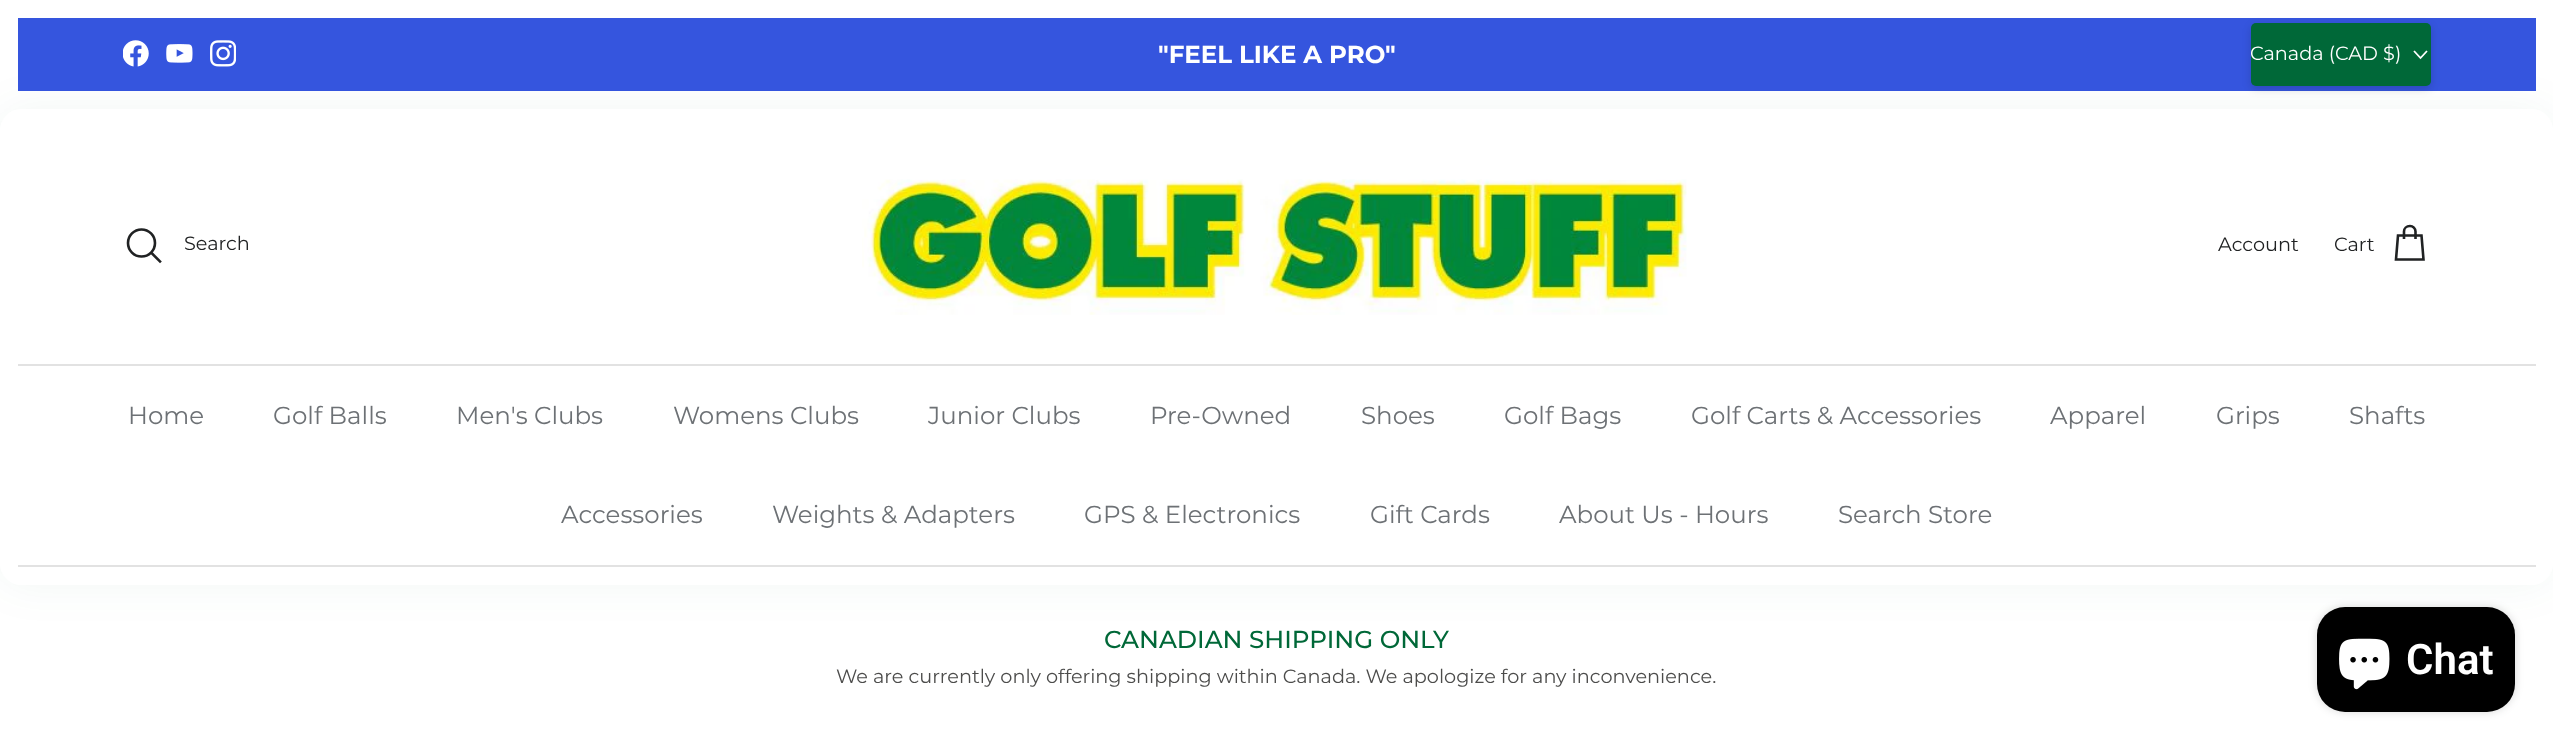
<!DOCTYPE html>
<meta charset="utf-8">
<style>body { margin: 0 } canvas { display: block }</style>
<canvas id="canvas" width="2553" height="748"></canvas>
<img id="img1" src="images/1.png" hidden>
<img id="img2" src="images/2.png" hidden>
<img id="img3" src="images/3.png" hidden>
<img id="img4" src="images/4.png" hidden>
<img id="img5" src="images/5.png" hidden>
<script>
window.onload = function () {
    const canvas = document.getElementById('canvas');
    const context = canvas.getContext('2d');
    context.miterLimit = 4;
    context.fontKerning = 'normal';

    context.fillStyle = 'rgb(255, 255, 255)';
    context.fillRect(0, 0, 2553, 748);
    context.fillStyle = 'rgba(0, 104, 56, 0.05)';
    context.filter = 'blur(22px)';
    context.beginPath();
    context.roundRect(0, 109, 2553, 476, 21);
    context.fill();
    context.filter = 'none';
    context.fillStyle = 'rgb(53, 85, 222)';
    context.fillRect(18, 18, 2518, 73);
    context.drawImage(document.getElementById('img1'), 123, 40, 26, 27);
    context.drawImage(document.getElementById('img2'), 166, 44, 27, 19);
    context.drawImage(document.getElementById('img3'), 210, 40, 26, 27);
    context.fillStyle = 'rgba(0, 0, 0, 0.15)';
    context.filter = 'blur(4.5px)';
    context.beginPath();
    context.roundRect(2251, 26, 180, 63, 5);
    context.fill();
    context.filter = 'none';
    context.fillStyle = 'rgb(0, 104, 56)';
    context.beginPath();
    context.roundRect(2251, 23, 180, 63, 5);
    context.fill();
    context.beginPath();
    context.moveTo(2427, 51);
    context.lineTo(2420.5, 58);
    context.lineTo(2414, 51);
    context.strokeStyle = 'rgb(255, 255, 255)';
    context.lineWidth = 1.8;
    context.stroke();
    context.fillStyle = 'rgb(255, 255, 255)';
    context.beginPath();
    context.roundRect(0, 109, 2553, 476, 21);
    context.fill();
    context.fillStyle = 'rgb(226, 226, 226)';
    context.fillRect(18, 364, 2518, 2);
    context.beginPath();
    context.arc(141.5, 243, 13.5, 0, 2 * Math.PI);
    context.strokeStyle = 'rgb(32, 34, 35)';
    context.lineWidth = 2.6;
    context.stroke();
    context.beginPath();
    context.moveTo(152, 253.5);
    context.lineTo(160, 261.5);
    context.lineCap = 'square';
    context.stroke();
    context.drawImage(document.getElementById('img4'), 862, 179, 825, 136);
    context.beginPath();
    context.moveTo(2415.5, 239);
    context.lineTo(2415.5, 231.5);
    context.bezierCurveTo(2415.5, 228.5, 2413, 226, 2410, 226);
    context.bezierCurveTo(2406.5, 226, 2404, 228.5, 2404, 231.5);
    context.lineTo(2404, 239);
    context.moveTo(2398, 235.5);
    context.lineTo(2421.5, 235.5);
    context.lineTo(2423.5, 259.5);
    context.lineTo(2396, 259.5);
    context.closePath();
    context.lineCap = 'butt';
    context.stroke();
    context.fillRect(18, 565, 2518, 2);
    context.fillStyle = 'rgba(0, 0, 0, 0.15)';
    context.filter = 'blur(4.5px)';
    context.beginPath();
    context.roundRect(2317, 607, 198, 105, 28);
    context.fill();
    context.filter = 'none';
    context.fillStyle = 'rgb(0, 0, 0)';
    context.beginPath();
    context.roundRect(2317, 607, 198, 105, 28);
    context.fill();
    context.drawImage(document.getElementById('img5'), 2339, 638, 51, 52);
    context.font = 'bold 24.5px Montserrat';
    context.fillStyle = 'rgb(255, 255, 255)';
    context.fillText('"FEEL LIKE A PRO"', 1158, 63);
    context.font = '19.25px Montserrat';
    context.fillText('Canada (CAD $)', 2250, 60);
    context.fillStyle = 'rgb(32, 34, 35)';
    context.fillText('Search', 184, 250);
    context.fillText('Account', 2218, 251);
    context.fillText('Cart', 2334, 251);
    context.font = '24.5px Montserrat';
    context.fillStyle = 'rgb(109, 113, 117)';
    context.fillText('Home', 128, 424);
    context.fillText('Golf Balls', 273, 424);
    context.fillText('Men\'s Clubs', 456, 424);
    context.fillText('Womens Clubs', 673, 424);
    context.fillText('Junior Clubs', 928, 424);
    context.fillText('Pre-Owned', 1150, 424);
    context.fillText('Shoes', 1361, 424);
    context.fillText('Golf Bags', 1504, 424);
    context.fillText('Golf Carts & Accessories', 1691, 424);
    context.fillText('Apparel', 2050, 424);
    context.fillText('Grips', 2216, 424);
    context.fillText('Shafts', 2349, 424);
    context.fillText('Accessories', 561, 523);
    context.fillText('Weights & Adapters', 772, 523);
    context.fillText('GPS & Electronics', 1084, 523);
    context.fillText('Gift Cards', 1370, 523);
    context.fillText('About Us - Hours', 1559, 523);
    context.fillText('Search Store', 1838, 523);
    context.font = '500 24.5px Montserrat';
    context.fillStyle = 'rgb(0, 104, 56)';
    context.fillText('CANADIAN SHIPPING ONLY', 1104, 648);
    context.font = '19.25px Montserrat';
    context.fillStyle = 'rgb(76, 76, 75)';
    context.fillText('We are currently only offering shipping within Canada. We apologize for any inconvenience.', 836, 683);
    context.font = '600 42px Roboto';
    context.fillStyle = 'rgb(255, 255, 255)';
    context.fillText('Chat', 2406, 674);
};
</script>
